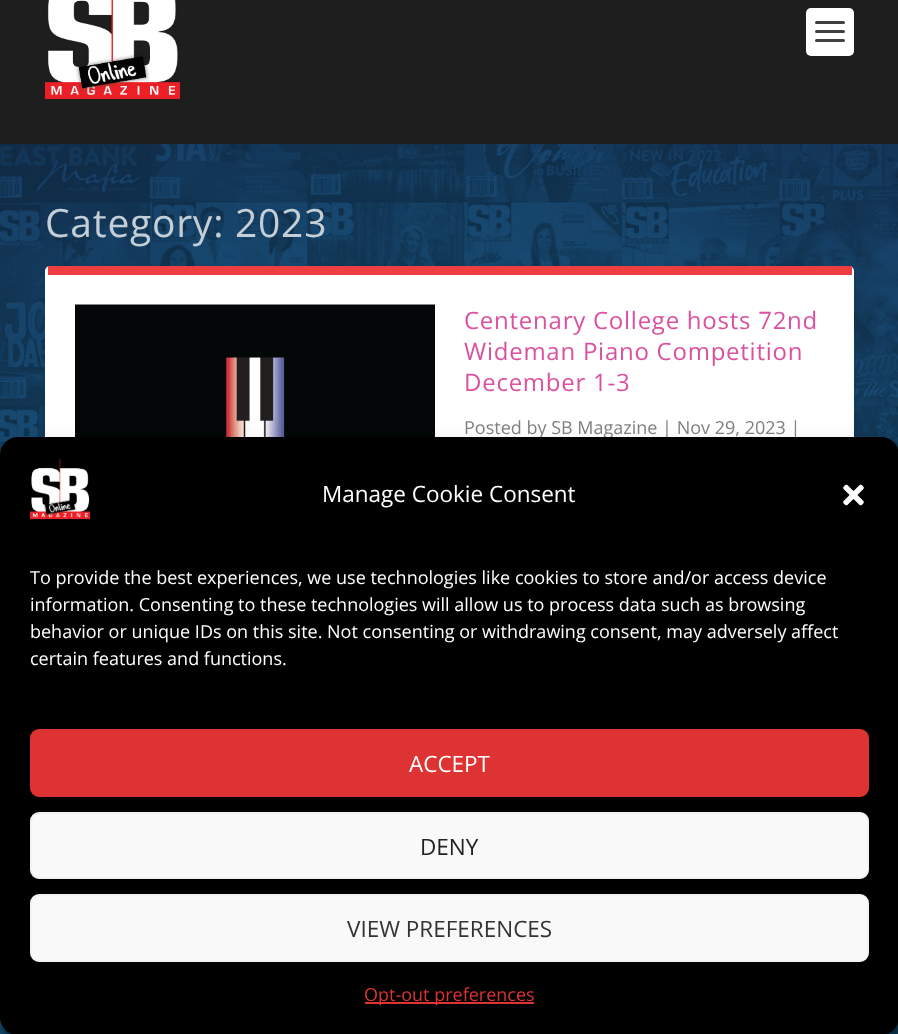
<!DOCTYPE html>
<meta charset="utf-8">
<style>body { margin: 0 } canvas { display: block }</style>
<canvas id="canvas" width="898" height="1034"></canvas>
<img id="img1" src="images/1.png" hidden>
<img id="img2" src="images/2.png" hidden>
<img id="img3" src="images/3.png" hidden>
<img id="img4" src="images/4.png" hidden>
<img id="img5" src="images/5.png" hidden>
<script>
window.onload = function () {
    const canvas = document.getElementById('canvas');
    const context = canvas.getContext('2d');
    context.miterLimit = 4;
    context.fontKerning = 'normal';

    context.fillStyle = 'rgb(255, 255, 255)';
    context.fillRect(0, 0, 898, 1034);
    context.drawImage(document.getElementById('img1'), 0, 144, 898, 890);
    context.fillStyle = 'rgb(30, 30, 30)';
    context.fillRect(0, 0, 898, 144);
    context.drawImage(document.getElementById('img2'), 45, 0, 135, 99);
    context.fillStyle = 'rgb(255, 255, 255)';
    context.beginPath();
    context.roundRect(806, 8, 48, 48, 5);
    context.fill();
    context.fillStyle = 'rgb(64, 64, 64)';
    context.beginPath();
    context.roundRect(815, 21, 30, 3, 1.5);
    context.fill();
    context.beginPath();
    context.roundRect(815, 30, 30, 3, 1.5);
    context.fill();
    context.beginPath();
    context.roundRect(815, 39, 30, 3, 1.5);
    context.fill();
    context.fillStyle = 'rgba(0, 0, 0, 0.1)';
    context.filter = 'blur(2px)';
    context.beginPath();
    context.roundRect(45, 267, 809, 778, 5);
    context.fill();
    context.filter = 'none';
    context.fillStyle = 'rgb(255, 255, 255)';
    context.beginPath();
    context.roundRect(45, 266, 809, 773, 5);
    context.fill();
    context.fillStyle = 'rgb(239, 62, 66)';
    context.fillRect(48, 266, 804, 9);
    context.drawImage(document.getElementById('img3'), 75, 304, 360, 133);
    context.fillStyle = 'rgba(0, 0, 0, 0.23)';
    context.filter = 'blur(4.5px)';
    context.beginPath();
    context.roundRect(0, 446, 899, 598, 18);
    context.fill();
    context.filter = 'none';
    context.fillStyle = 'rgba(0, 0, 0, 0.19)';
    context.filter = 'blur(15px)';
    context.beginPath();
    context.roundRect(0, 452, 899, 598, 18);
    context.fill();
    context.filter = 'none';
    context.letterSpacing = '0.75px';
    context.font = '39px Open Sans';
    context.fillStyle = 'rgb(196, 206, 214)';
    context.fillText('Category:', 45, 237);
    context.fillText('2023', 235, 237);
    context.font = '24px Open Sans';
    context.fillStyle = 'rgb(219, 80, 159)';
    context.fillText('Centenary College hosts 72nd', 464, 329);
    context.fillText('Wideman Piano Competition', 464, 360);
    context.fillText('December 1-3', 464, 391);
    context.letterSpacing = '0px';
    context.font = '18px Open Sans';
    context.fillStyle = 'rgb(128, 128, 128)';
    context.fillText('Posted by SB Magazine | Nov 29, 2023 |', 464, 434);
    context.fillStyle = 'rgb(0, 0, 0)';
    context.beginPath();
    context.roundRect(0, 437, 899, 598, 18);
    context.fill();
    context.drawImage(document.getElementById('img4'), 30, 459, 60, 61);
    context.font = '22.5px Open Sans';
    context.fillStyle = 'rgb(255, 255, 255)';
    context.fillText('Manage Cookie Consent', 322, 502);
    context.drawImage(document.getElementById('img5'), 843, 484, 21, 22);
    context.font = '18px Open Sans';
    context.fillText('To provide the best experiences, we use technologies like cookies to store and/or access device', 30, 584);
    context.fillText('information. Consenting to these technologies will allow us to process data such as browsing', 30, 611);
    context.fillText('behavior or unique IDs on this site. Not consenting or withdrawing consent, may adversely affect', 30, 638);
    context.fillText('certain features and functions.', 30, 665);
    context.fillStyle = 'rgb(221, 51, 51)';
    context.beginPath();
    context.roundRect(31, 730, 837, 66, 8);
    context.fill();
    context.strokeStyle = 'rgb(221, 51, 51)';
    context.lineWidth = 2;
    context.stroke();
    context.font = '22.5px Open Sans';
    context.fillStyle = 'rgb(255, 255, 255)';
    context.fillText('ACCEPT', 409, 772);
    context.fillStyle = 'rgb(249, 249, 249)';
    context.beginPath();
    context.roundRect(31, 813, 837, 65, 8);
    context.fill();
    context.strokeStyle = 'rgb(242, 242, 242)';
    context.stroke();
    context.fillStyle = 'rgb(34, 34, 34)';
    context.fillText('DENY', 420, 855);
    context.fillStyle = 'rgb(249, 249, 249)';
    context.beginPath();
    context.roundRect(31, 895, 837, 66, 8);
    context.fill();
    context.stroke();
    context.fillStyle = 'rgb(51, 51, 51)';
    context.fillText('VIEW PREFERENCES', 347, 937);
    context.fillStyle = 'rgb(221, 51, 51)';
    context.fillRect(365, 1002, 169, 2);
    context.font = '18px Open Sans';
    context.fillText('Opt-out preferences', 364, 1001);
};
</script>
